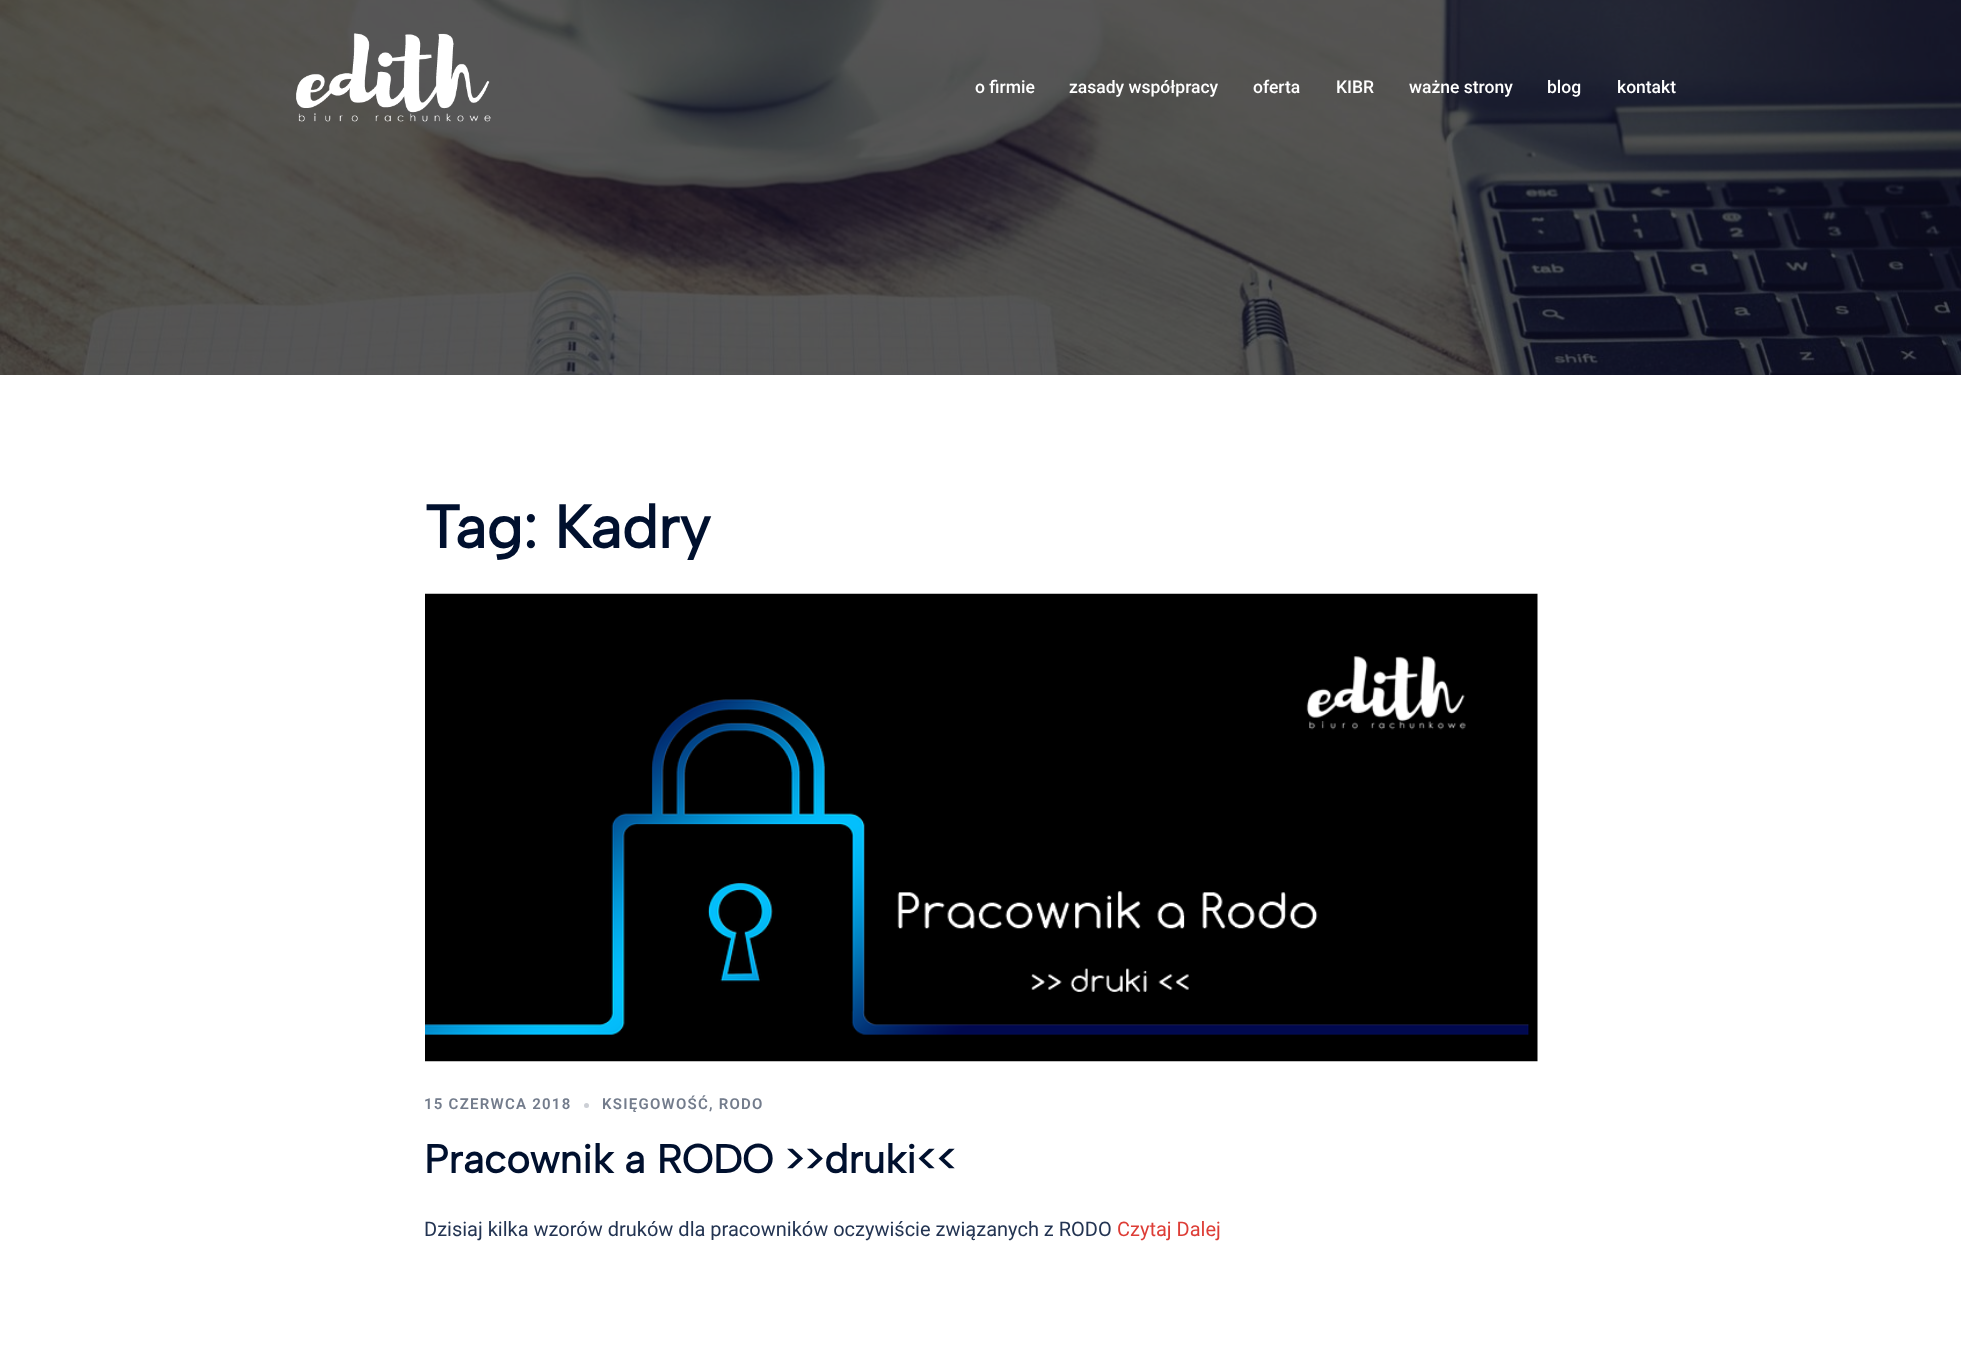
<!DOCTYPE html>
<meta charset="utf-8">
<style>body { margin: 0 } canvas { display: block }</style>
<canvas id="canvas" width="1961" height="1372"></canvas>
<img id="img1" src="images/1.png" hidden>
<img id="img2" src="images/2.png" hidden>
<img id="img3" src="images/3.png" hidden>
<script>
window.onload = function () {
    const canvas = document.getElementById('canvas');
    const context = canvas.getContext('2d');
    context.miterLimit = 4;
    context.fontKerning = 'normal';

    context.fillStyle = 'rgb(255, 255, 255)';
    context.fillRect(0, 0, 1961, 1372);
    context.drawImage(document.getElementById('img1'), 0, 0, 1961, 375);
    context.drawImage(document.getElementById('img2'), 296, 33, 195, 89);
    context.drawImage(document.getElementById('img3'), 425, 593, 1113, 469);
    context.fillStyle = 'rgb(204, 207, 213)';
    context.beginPath();
    context.arc(586.5, 1105.5, 2.5, 0, 2 * Math.PI);
    context.fill();
    context.font = '500 17.5px Roboto';
    context.fillStyle = 'rgb(255, 255, 255)';
    context.fillText('o firmie', 975, 93);
    context.fillText('zasady współpracy', 1069, 93);
    context.fillText('oferta', 1253, 93);
    context.fillText('KIBR', 1336, 93);
    context.fillText('ważne strony', 1409, 93);
    context.fillText('blog', 1547, 93);
    context.fillText('kontakt', 1617, 93);
    context.font = 'bold 60px Albert Sans';
    context.fillStyle = 'rgb(0, 16, 46)';
    context.fillText('Tag: Kadry', 424, 548);
    context.letterSpacing = '1.25px';
    context.font = '600 15px Roboto';
    context.fillStyle = 'rgb(115, 124, 140)';
    context.fillText('15 CZERWCA 2018', 424, 1109);
    context.fillText('KSIĘGOWOŚĆ, RODO', 602, 1109);
    context.letterSpacing = '0px';
    context.font = 'bold 40px Albert Sans';
    context.fillStyle = 'rgb(0, 16, 46)';
    context.fillText('Pracownik a RODO >>druki<<', 424, 1173);
    context.font = '20px Roboto';
    context.fillStyle = 'rgb(35, 52, 82)';
    context.fillText('Dzisiaj kilka wzorów druków dla pracowników oczywiście związanych z RODO', 424, 1236);
    context.fillStyle = 'rgb(221, 61, 54)';
    context.fillText('Czytaj Dalej', 1117, 1236);
};
</script>
